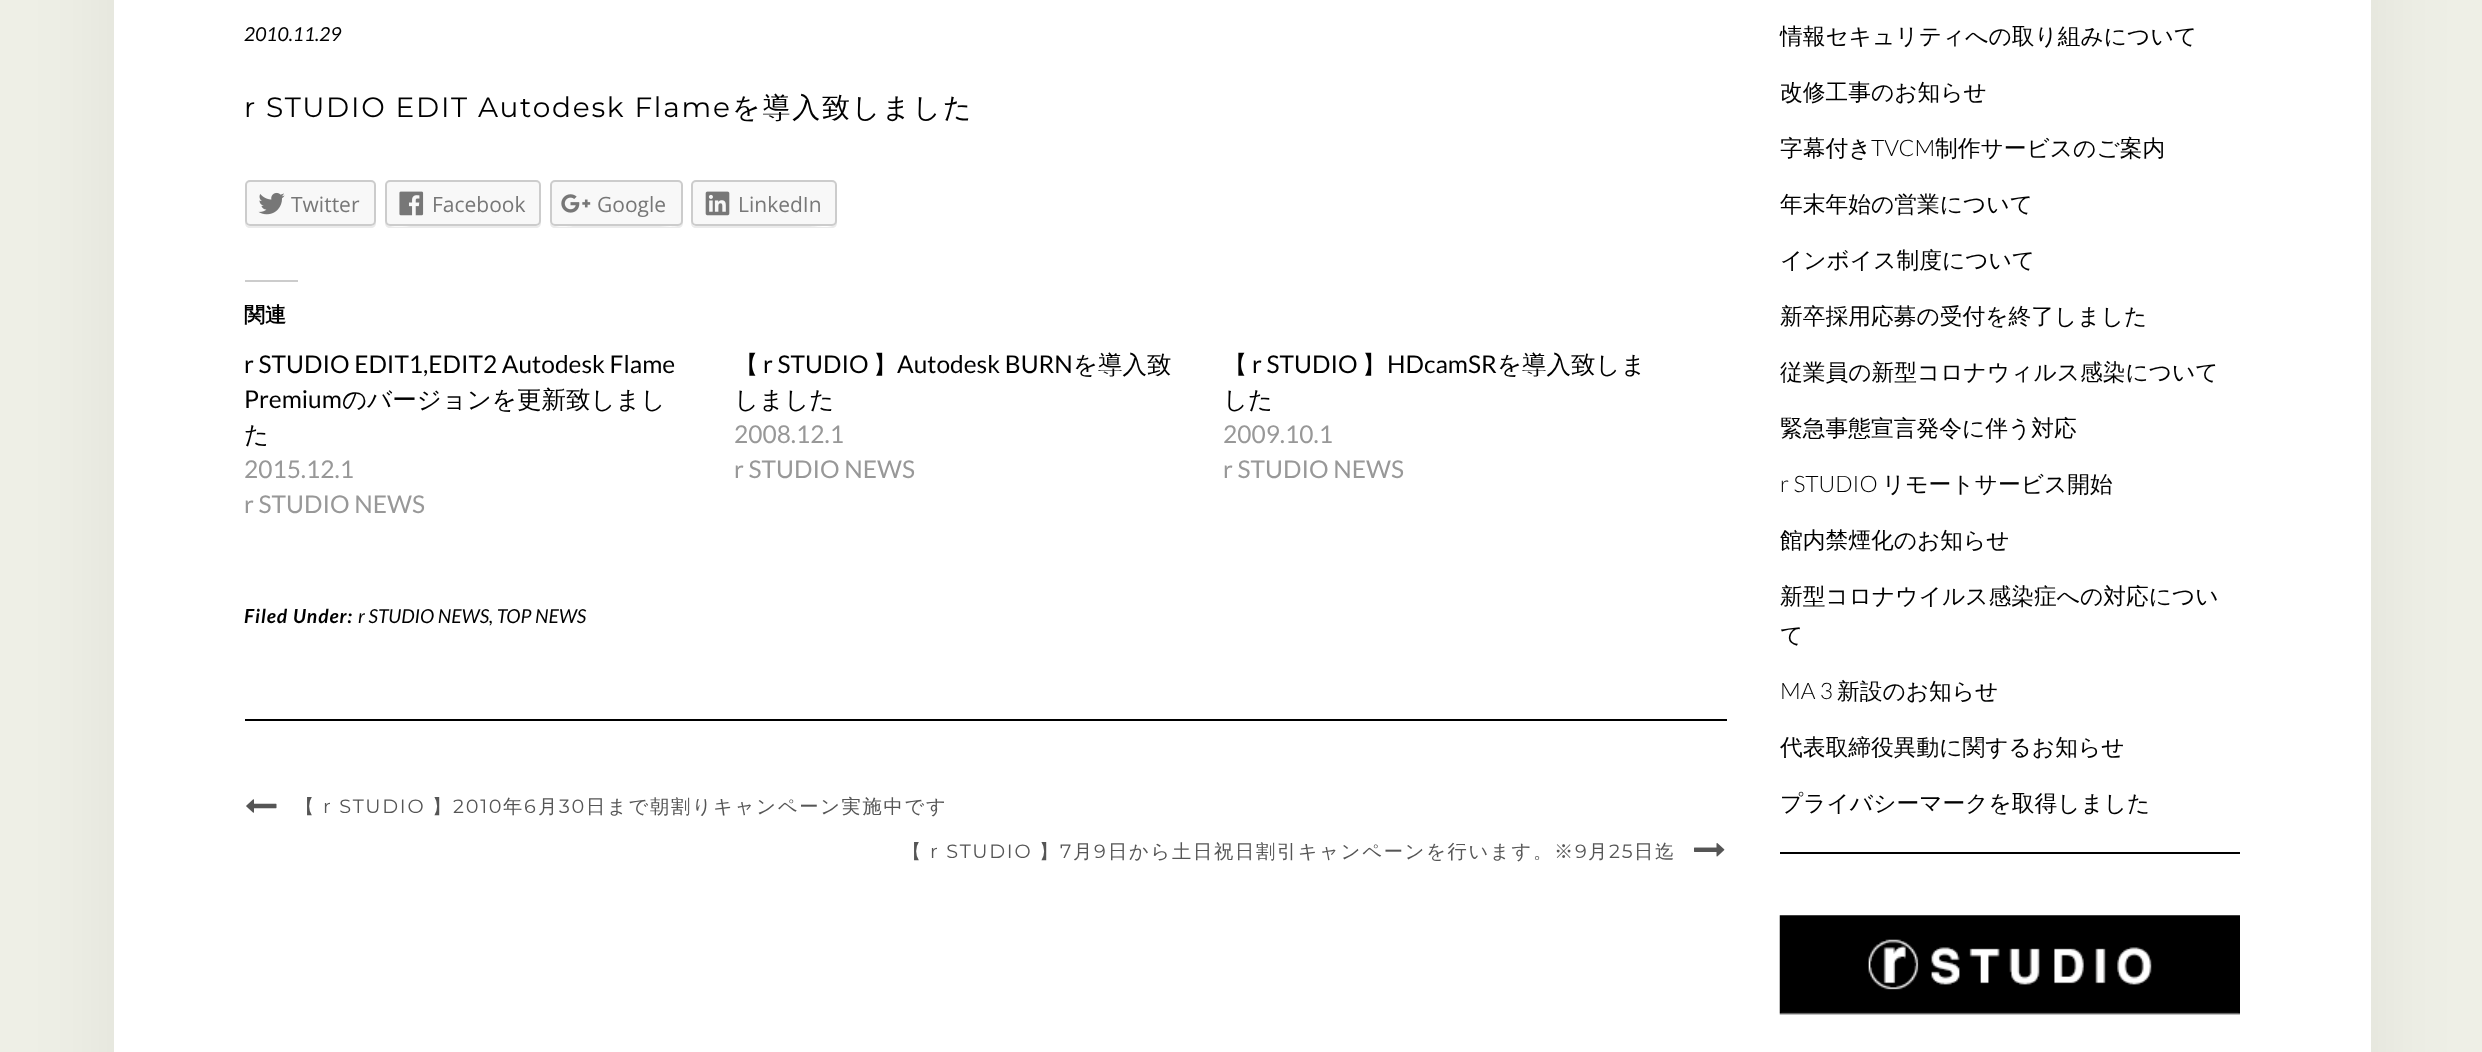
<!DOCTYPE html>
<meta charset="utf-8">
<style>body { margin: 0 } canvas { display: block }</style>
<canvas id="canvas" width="2482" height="1052"></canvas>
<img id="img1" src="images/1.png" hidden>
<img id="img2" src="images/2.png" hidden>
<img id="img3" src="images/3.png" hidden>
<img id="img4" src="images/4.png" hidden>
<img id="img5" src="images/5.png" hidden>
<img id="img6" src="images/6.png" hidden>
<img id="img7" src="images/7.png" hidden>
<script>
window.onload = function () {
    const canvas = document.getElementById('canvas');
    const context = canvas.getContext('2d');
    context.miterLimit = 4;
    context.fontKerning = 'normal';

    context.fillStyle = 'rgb(238, 239, 230)';
    context.fillRect(0, 0, 2482, 1052);
    context.fillStyle = 'rgba(0, 0, 0, 0.06)';
    context.filter = 'blur(44px)';
    context.beginPath();
    context.rect(114, -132, 2257, 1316);
    context.fill();
    context.filter = 'none';
    context.fillStyle = 'rgb(255, 255, 255)';
    context.fillRect(114, 0, 2257, 1052);
    context.fillStyle = 'rgb(235, 235, 235)';
    context.beginPath();
    context.moveTo(245, 220);
    context.lineTo(245, 223);
    context.bezierCurveTo(245, 226, 247, 228, 250, 228);
    context.lineTo(371, 228);
    context.bezierCurveTo(374, 228, 376, 226, 376, 223);
    context.lineTo(376, 222);
    context.bezierCurveTo(375, 224, 373, 226, 371, 226);
    context.lineTo(250, 226);
    context.bezierCurveTo(247, 226, 245, 223, 245, 220);
    context.closePath();
    context.fill();
    context.fillStyle = 'rgb(248, 248, 248)';
    context.beginPath();
    context.roundRect(246, 181, 129, 44, 4);
    context.fill();
    context.strokeStyle = 'rgb(204, 204, 204)';
    context.lineWidth = 2;
    context.stroke();
    context.drawImage(document.getElementById('img1'), 258, 192, 27, 23);
    context.fillStyle = 'rgb(235, 235, 235)';
    context.beginPath();
    context.moveTo(385, 220);
    context.lineTo(385, 223);
    context.bezierCurveTo(385, 226, 387, 228, 390, 228);
    context.lineTo(536, 228);
    context.bezierCurveTo(539, 228, 541, 226, 541, 223);
    context.lineTo(541, 185);
    context.lineTo(541, 215);
    context.bezierCurveTo(541, 219, 542, 226, 536, 226);
    context.lineTo(414, 226);
    context.bezierCurveTo(404, 226, 385, 230, 385, 220);
    context.closePath();
    context.fill();
    context.fillStyle = 'rgb(248, 248, 248)';
    context.beginPath();
    context.roundRect(386, 181, 154, 44, 4);
    context.fill();
    context.stroke();
    context.drawImage(document.getElementById('img2'), 399, 191, 25, 25);
    context.fillStyle = 'rgb(235, 235, 235)';
    context.beginPath();
    context.moveTo(550, 223);
    context.bezierCurveTo(550, 226, 552, 228, 555, 228);
    context.lineTo(678, 228);
    context.bezierCurveTo(681, 228, 683, 226, 683, 223);
    context.lineTo(683, 187);
    context.lineTo(682, 185);
    context.lineTo(682, 222);
    context.bezierCurveTo(681, 229, 664, 226, 657, 226);
    context.lineTo(575, 226);
    context.bezierCurveTo(571, 226, 553, 229, 550, 223);
    context.closePath();
    context.fill();
    context.fillStyle = 'rgb(248, 248, 248)';
    context.beginPath();
    context.roundRect(551, 181, 131, 44, 4);
    context.fill();
    context.stroke();
    context.drawImage(document.getElementById('img3'), 561, 194, 30, 19);
    context.fillStyle = 'rgb(235, 235, 235)';
    context.beginPath();
    context.moveTo(691, 185);
    context.lineTo(691, 223);
    context.bezierCurveTo(691, 226, 693, 228, 696, 228);
    context.lineTo(832, 228);
    context.bezierCurveTo(835, 228, 837, 226, 837, 223);
    context.lineTo(837, 187);
    context.lineTo(836, 185);
    context.lineTo(836, 222);
    context.bezierCurveTo(835, 230, 816, 226, 809, 226);
    context.lineTo(696, 226);
    context.bezierCurveTo(690, 226, 691, 219, 691, 215);
    context.closePath();
    context.fill();
    context.fillStyle = 'rgb(248, 248, 248)';
    context.beginPath();
    context.roundRect(692, 181, 144, 44, 4);
    context.fill();
    context.stroke();
    context.drawImage(document.getElementById('img4'), 705, 191, 25, 25);
    context.fillStyle = 'rgb(204, 204, 204)';
    context.fillRect(245, 280, 53, 2);
    context.fillStyle = 'rgb(0, 0, 0)';
    context.fillRect(245, 719, 1482, 2);
    context.drawImage(document.getElementById('img5'), 246, 799, 31, 14);
    context.drawImage(document.getElementById('img6'), 1694, 843, 31, 14);
    context.fillRect(1780, 852, 460, 2);
    context.drawImage(document.getElementById('img7'), 1779, 915, 461, 100);
    context.font = 'italic 19.25px Lato';
    context.fillText('2010.11.29', 244, 41);
    context.letterSpacing = '1.75px';
    context.font = '28px Montserrat';
    context.fillText('r STUDIO EDIT Autodesk Flame', 244, 117);
    context.font = '500 28px WenQuanYi Zen Hei';
    context.fillText('を導入致しました', 732, 117);
    context.letterSpacing = '0px';
    context.font = '21px Open Sans';
    context.fillStyle = 'rgb(119, 119, 119)';
    context.fillText('Twitter', 291, 212);
    context.fillText('Facebook', 432, 212);
    context.fillText('Google', 597, 212);
    context.fillText('LinkedIn', 738, 212);
    context.font = 'bold 21px WenQuanYi Zen Hei';
    context.fillStyle = 'rgb(0, 0, 0)';
    context.fillText('関連', 244, 322);
    context.font = '24.5px Lato';
    context.fillText('r STUDIO EDIT1,EDIT2 Autodesk Flame', 244, 373);
    context.fillText('Premium', 244, 408);
    context.font = '500 24.5px WenQuanYi Zen Hei';
    context.fillText('のバージョンを更新致しまし', 342, 408);
    context.fillText('た', 244, 443);
    context.font = '24.5px Lato';
    context.fillStyle = 'rgb(152, 152, 152)';
    context.fillText('2015.12.1', 244, 478);
    context.fillText('r STUDIO NEWS', 244, 513);
    context.font = '500 24.5px WenQuanYi Zen Hei';
    context.fillStyle = 'rgb(0, 0, 0)';
    context.fillText('【', 734, 373);
    context.font = '24.5px Lato';
    context.fillText('r STUDIO', 763, 373);
    context.font = '500 24.5px WenQuanYi Zen Hei';
    context.fillText('】', 873, 373);
    context.font = '24.5px Lato';
    context.fillText('Autodesk BURN', 897, 373);
    context.font = '500 24.5px WenQuanYi Zen Hei';
    context.fillText('を導入致', 1073, 373);
    context.fillText('しました', 734, 408);
    context.font = '24.5px Lato';
    context.fillStyle = 'rgb(152, 152, 152)';
    context.fillText('2008.12.1', 734, 443);
    context.fillText('r STUDIO NEWS', 734, 478);
    context.font = '500 24.5px WenQuanYi Zen Hei';
    context.fillStyle = 'rgb(0, 0, 0)';
    context.fillText('【', 1223, 373);
    context.font = '24.5px Lato';
    context.fillText('r STUDIO', 1252, 373);
    context.font = '500 24.5px WenQuanYi Zen Hei';
    context.fillText('】', 1362, 373);
    context.font = '24.5px Lato';
    context.fillText('HDcamSR', 1387, 373);
    context.font = '500 24.5px WenQuanYi Zen Hei';
    context.fillText('を導入致しま', 1497, 373);
    context.fillText('した', 1223, 408);
    context.font = '24.5px Lato';
    context.fillStyle = 'rgb(152, 152, 152)';
    context.fillText('2009.10.1', 1223, 443);
    context.fillText('r STUDIO NEWS', 1223, 478);
    context.letterSpacing = '1px';
    context.font = 'italic bold 19.25px Lato';
    context.fillStyle = 'rgb(0, 0, 0)';
    context.fillText('Filed Under:', 244, 623);
    context.letterSpacing = '0px';
    context.font = 'italic 19.25px Lato';
    context.fillText('r STUDIO NEWS, TOP NEWS', 358, 623);
    context.letterSpacing = '1.75px';
    context.font = '500 19.25px WenQuanYi Zen Hei';
    context.fillStyle = 'rgb(85, 85, 85)';
    context.fillText('【', 295, 813);
    context.font = '19.25px Montserrat';
    context.fillText('r STUDIO', 323, 813);
    context.font = '500 19.25px WenQuanYi Zen Hei';
    context.fillText('】', 432, 813);
    context.font = '19.25px Montserrat';
    context.fillText('2010', 453, 813);
    context.font = '500 19.25px WenQuanYi Zen Hei';
    context.fillText('年', 503, 813);
    context.font = '19.25px Montserrat';
    context.fillText('6', 524, 813);
    context.font = '500 19.25px WenQuanYi Zen Hei';
    context.fillText('月', 538, 813);
    context.font = '19.25px Montserrat';
    context.fillText('30', 559, 813);
    context.font = '500 19.25px WenQuanYi Zen Hei';
    context.fillText('日まで朝割りキャンペーン実施中です', 586, 813);
    context.fillText('【', 902, 858);
    context.font = '19.25px Montserrat';
    context.fillText('r STUDIO', 930, 858);
    context.font = '500 19.25px WenQuanYi Zen Hei';
    context.fillText('】', 1039, 858);
    context.font = '19.25px Montserrat';
    context.fillText('7', 1060, 858);
    context.font = '500 19.25px WenQuanYi Zen Hei';
    context.fillText('月', 1073, 858);
    context.font = '19.25px Montserrat';
    context.fillText('9', 1094, 858);
    context.font = '500 19.25px WenQuanYi Zen Hei';
    context.fillText('日から土日祝日割引キャンペーンを行います。※', 1108, 858);
    context.font = '19.25px Montserrat';
    context.fillText('9', 1575, 858);
    context.font = '500 19.25px WenQuanYi Zen Hei';
    context.fillText('月', 1588, 858);
    context.font = '19.25px Montserrat';
    context.fillText('25', 1609, 858);
    context.font = '500 19.25px WenQuanYi Zen Hei';
    context.fillText('日迄', 1634, 858);
    context.letterSpacing = '0px';
    context.font = '500 22.75px WenQuanYi Zen Hei';
    context.fillStyle = 'rgb(0, 0, 0)';
    context.fillText('情報セキュリティへの取り組みについて', 1780, 44);
    context.fillText('改修工事のお知らせ', 1780, 100);
    context.fillText('字幕付き', 1780, 156);
    context.font = '300 22.75px Lato';
    context.fillText('TVCM', 1871, 156);
    context.font = '500 22.75px WenQuanYi Zen Hei';
    context.fillText('制作サービスのご案内', 1935, 156);
    context.fillText('年末年始の営業について', 1780, 212);
    context.fillText('インボイス制度について', 1780, 268);
    context.fillText('新卒採用応募の受付を終了しました', 1780, 324);
    context.fillText('従業員の新型コロナウィルス感染について', 1780, 380);
    context.fillText('緊急事態宣言発令に伴う対応', 1780, 436);
    context.font = '300 22.75px Lato';
    context.fillText('r STUDIO', 1780, 492);
    context.font = '500 22.75px WenQuanYi Zen Hei';
    context.fillText('リモートサービス開始', 1882, 492);
    context.fillText('館内禁煙化のお知らせ', 1780, 548);
    context.fillText('新型コロナウイルス感染症への対応につい', 1780, 604);
    context.fillText('て', 1780, 643);
    context.font = '300 22.75px Lato';
    context.fillText('MA 3', 1780, 699);
    context.font = '500 22.75px WenQuanYi Zen Hei';
    context.fillText('新設のお知らせ', 1837, 699);
    context.fillText('代表取締役異動に関するお知らせ', 1780, 755);
    context.fillText('プライバシーマークを取得しました', 1780, 811);
};
</script>
